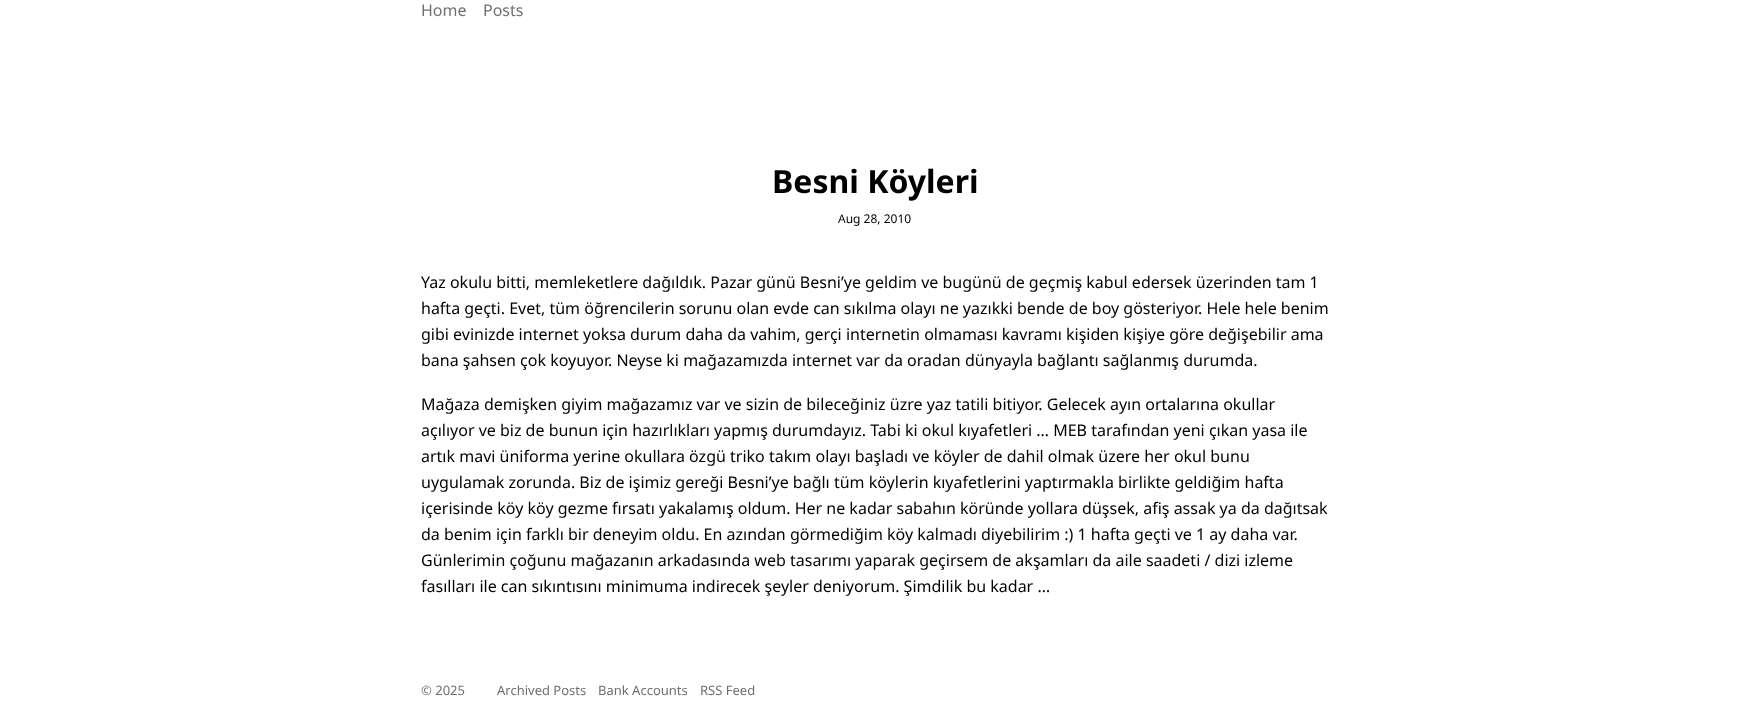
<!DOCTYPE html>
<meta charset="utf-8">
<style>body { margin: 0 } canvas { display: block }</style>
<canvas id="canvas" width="1750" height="707"></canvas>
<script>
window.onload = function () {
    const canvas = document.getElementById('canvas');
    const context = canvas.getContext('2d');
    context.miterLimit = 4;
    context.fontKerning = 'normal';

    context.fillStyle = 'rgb(255, 255, 255)';
    context.fillRect(0, 0, 1750, 707);
    context.font = '16px Noto Sans';
    context.fillStyle = 'rgb(112, 112, 112)';
    context.fillText('Home', 421, 16);
    context.fillText('Posts', 483, 16);
    context.font = 'bold 32px Noto Sans';
    context.fillStyle = 'rgb(0, 0, 0)';
    context.fillText('Besni Köyleri', 772, 193);
    context.font = '12px Noto Sans';
    context.fillText('Aug 28, 2010', 838, 223);
    context.font = '16px Noto Sans';
    context.fillText('Yaz okulu bitti, memleketlere dağıldık. Pazar günü Besni’ye geldim ve bugünü de geçmiş kabul edersek üzerinden tam 1', 421, 288);
    context.fillText('hafta geçti. Evet, tüm öğrencilerin sorunu olan evde can sıkılma olayı ne yazıkki bende de boy gösteriyor. Hele hele benim', 421, 314);
    context.fillText('gibi evinizde internet yoksa durum daha da vahim, gerçi internetin olmaması kavramı kişiden kişiye göre değişebilir ama', 421, 340);
    context.fillText('bana şahsen çok koyuyor. Neyse ki mağazamızda internet var da oradan dünyayla bağlantı sağlanmış durumda.', 421, 366);
    context.fillText('Mağaza demişken giyim mağazamız var ve sizin de bileceğiniz üzre yaz tatili bitiyor. Gelecek ayın ortalarına okullar', 421, 410);
    context.fillText('açılıyor ve biz de bunun için hazırlıkları yapmış durumdayız. Tabi ki okul kıyafetleri … MEB tarafından yeni çıkan yasa ile', 421, 436);
    context.fillText('artık mavi üniforma yerine okullara özgü triko takım olayı başladı ve köyler de dahil olmak üzere her okul bunu', 421, 462);
    context.fillText('uygulamak zorunda. Biz de işimiz gereği Besni’ye bağlı tüm köylerin kıyafetlerini yaptırmakla birlikte geldiğim hafta', 421, 488);
    context.fillText('içerisinde köy köy gezme fırsatı yakalamış oldum. Her ne kadar sabahın köründe yollara düşsek, afiş assak ya da dağıtsak', 421, 514);
    context.fillText('da benim için farklı bir deneyim oldu. En azından görmediğim köy kalmadı diyebilirim :) 1 hafta geçti ve 1 ay daha var.', 421, 540);
    context.fillText('Günlerimin çoğunu mağazanın arkadasında web tasarımı yaparak geçirsem de akşamları da aile saadeti / dizi izleme', 421, 566);
    context.fillText('fasılları ile can sıkıntısını minimuma indirecek şeyler deniyorum. Şimdilik bu kadar …', 421, 592);
    context.font = '13px Noto Sans';
    context.fillStyle = 'rgb(112, 112, 112)';
    context.fillText('© 2025', 421, 695);
    context.fillText('Archived Posts', 497, 695);
    context.fillText('Bank Accounts', 598, 695);
    context.fillText('RSS Feed', 700, 695);
};
</script>
